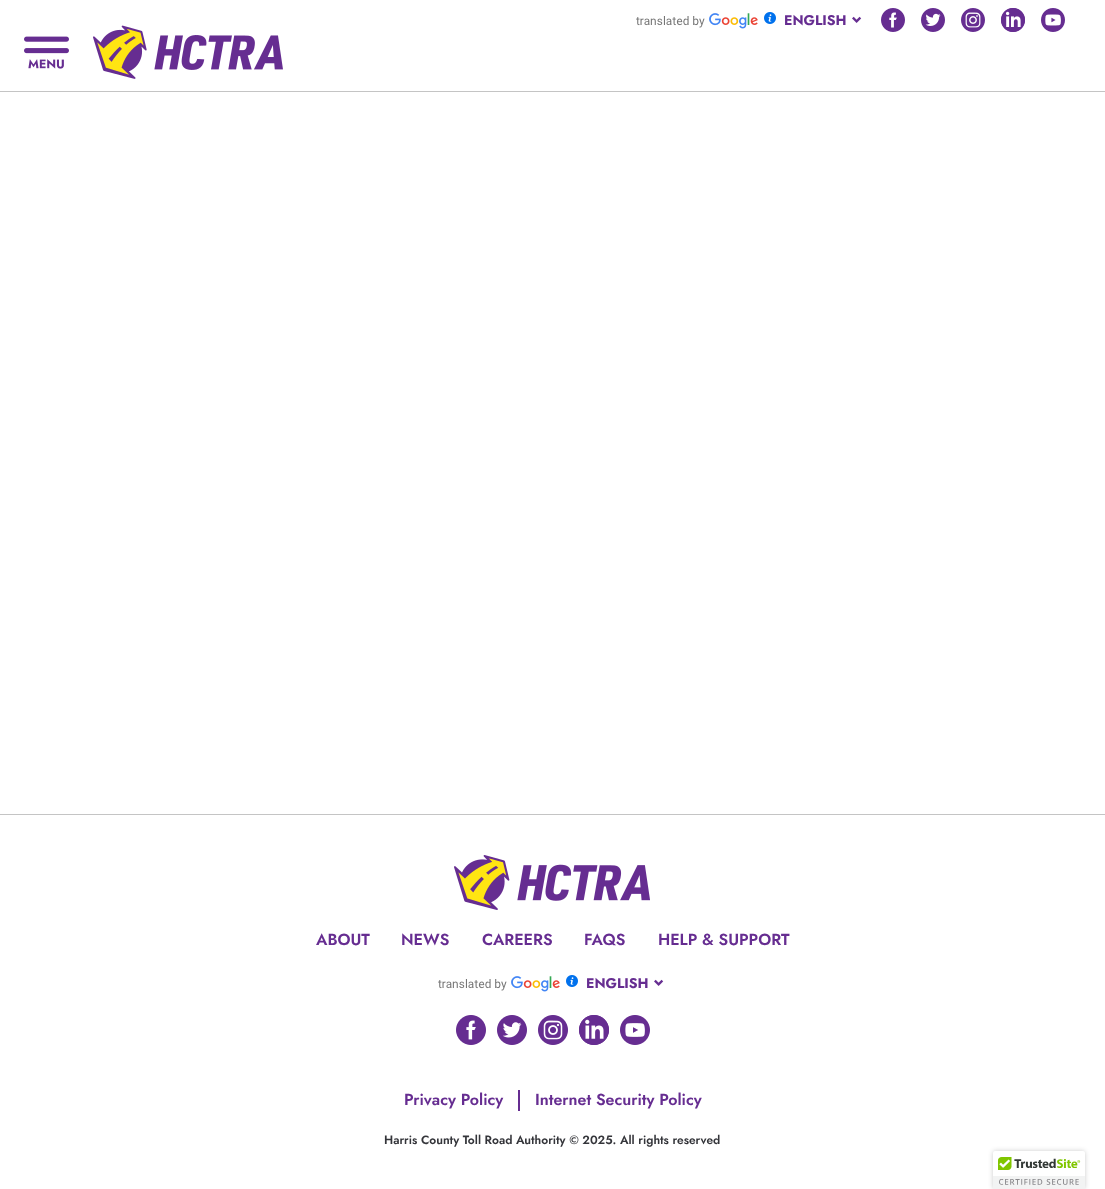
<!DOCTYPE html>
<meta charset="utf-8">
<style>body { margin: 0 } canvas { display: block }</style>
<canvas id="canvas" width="1105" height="1189"></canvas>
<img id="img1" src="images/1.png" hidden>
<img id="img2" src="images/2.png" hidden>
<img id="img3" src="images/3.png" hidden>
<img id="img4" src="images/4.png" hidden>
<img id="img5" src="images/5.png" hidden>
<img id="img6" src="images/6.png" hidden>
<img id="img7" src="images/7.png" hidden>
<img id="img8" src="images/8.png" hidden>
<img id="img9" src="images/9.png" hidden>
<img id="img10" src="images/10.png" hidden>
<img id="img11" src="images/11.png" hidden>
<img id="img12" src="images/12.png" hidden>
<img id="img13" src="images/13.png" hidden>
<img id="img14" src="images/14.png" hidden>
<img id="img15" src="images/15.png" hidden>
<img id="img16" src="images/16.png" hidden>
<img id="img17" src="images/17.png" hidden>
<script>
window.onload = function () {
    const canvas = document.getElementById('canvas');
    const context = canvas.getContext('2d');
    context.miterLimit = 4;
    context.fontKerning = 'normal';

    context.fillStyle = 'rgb(255, 255, 255)';
    context.fillRect(0, 0, 1105, 1189);
    context.fillStyle = 'rgb(196, 196, 196)';
    context.fillRect(0, 91, 1105, 1);
    context.drawImage(document.getElementById('img1'), 636, 13, 122, 16);
    context.drawImage(document.getElementById('img2'), 764, 12, 12, 12);
    context.drawImage(document.getElementById('img3'), 852, 16, 10, 7);
    context.drawImage(document.getElementById('img4'), 881, 8, 24, 24);
    context.drawImage(document.getElementById('img5'), 921, 8, 24, 24);
    context.drawImage(document.getElementById('img6'), 961, 8, 24, 24);
    context.drawImage(document.getElementById('img7'), 1001, 8, 24, 24);
    context.drawImage(document.getElementById('img8'), 1041, 8, 24, 24);
    context.drawImage(document.getElementById('img9'), 24, 36, 45, 33);
    context.drawImage(document.getElementById('img10'), 93, 25, 190, 54);
    context.fillRect(0, 814, 1105, 1);
    context.drawImage(document.getElementById('img11'), 454, 855, 196, 55);
    context.drawImage(document.getElementById('img1'), 438, 976, 122, 16);
    context.drawImage(document.getElementById('img2'), 566, 975, 12, 12);
    context.drawImage(document.getElementById('img3'), 654, 979, 10, 7);
    context.drawImage(document.getElementById('img12'), 456, 1015, 30, 30);
    context.drawImage(document.getElementById('img13'), 497, 1015, 30, 30);
    context.drawImage(document.getElementById('img14'), 538, 1015, 30, 30);
    context.drawImage(document.getElementById('img15'), 579, 1015, 30, 30);
    context.drawImage(document.getElementById('img16'), 620, 1015, 30, 30);
    context.fillStyle = 'rgb(102, 45, 145)';
    context.fillRect(518, 1090, 2, 21);
    context.fillStyle = 'rgba(0, 0, 0, 0.2)';
    context.filter = 'blur(2.5px)';
    context.beginPath();
    context.roundRect(993, 1151, 92, 38, 2);
    context.fill();
    context.filter = 'none';
    context.fillStyle = 'rgb(255, 255, 255)';
    context.beginPath();
    context.roundRect(993, 1151, 92, 38, [2, 2, 0, 0]);
    context.fill();
    context.drawImage(document.getElementById('img17'), 993, 1157, 92, 32);
    context.font = 'bold 14px Jost';
    context.fillStyle = 'rgb(102, 45, 145)';
    context.fillText('ENGLISH', 784, 25);
    context.font = '600 16px Jost';
    context.fillText('ABOUT', 316, 945);
    context.fillText('NEWS', 401, 945);
    context.fillText('CAREERS', 482, 945);
    context.fillText('FAQS', 584, 945);
    context.fillText('HELP & SUPPORT', 658, 945);
    context.font = 'bold 14px Jost';
    context.fillText('ENGLISH', 586, 988);
    context.font = '600 16px Jost';
    context.fillText('Privacy Policy', 404, 1105);
    context.fillText('Internet Security Policy', 535, 1105);
    context.font = '600 12px Jost';
    context.fillStyle = 'rgb(52, 53, 58)';
    context.fillText('Harris County Toll Road Authority © 2025. All rights reserved', 384, 1144);
};
</script>
